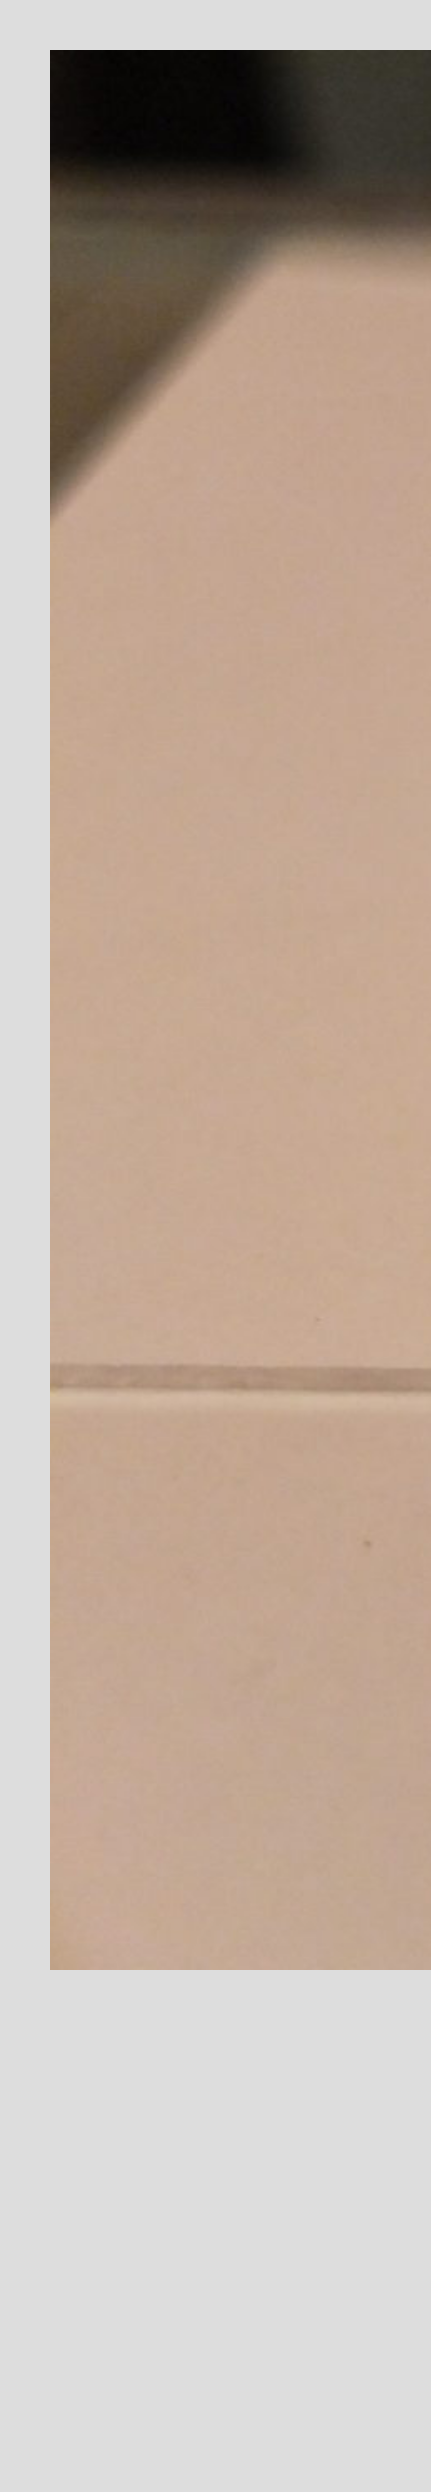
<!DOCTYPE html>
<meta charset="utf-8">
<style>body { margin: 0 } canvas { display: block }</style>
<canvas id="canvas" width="431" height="2492"></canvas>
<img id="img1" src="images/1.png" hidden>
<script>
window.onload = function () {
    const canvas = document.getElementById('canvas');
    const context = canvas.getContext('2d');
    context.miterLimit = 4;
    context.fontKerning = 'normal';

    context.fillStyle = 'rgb(221, 221, 221)';
    context.fillRect(0, 0, 431, 2492);
    context.drawImage(document.getElementById('img1'), 50, 50, 381, 1920);
};
</script>
